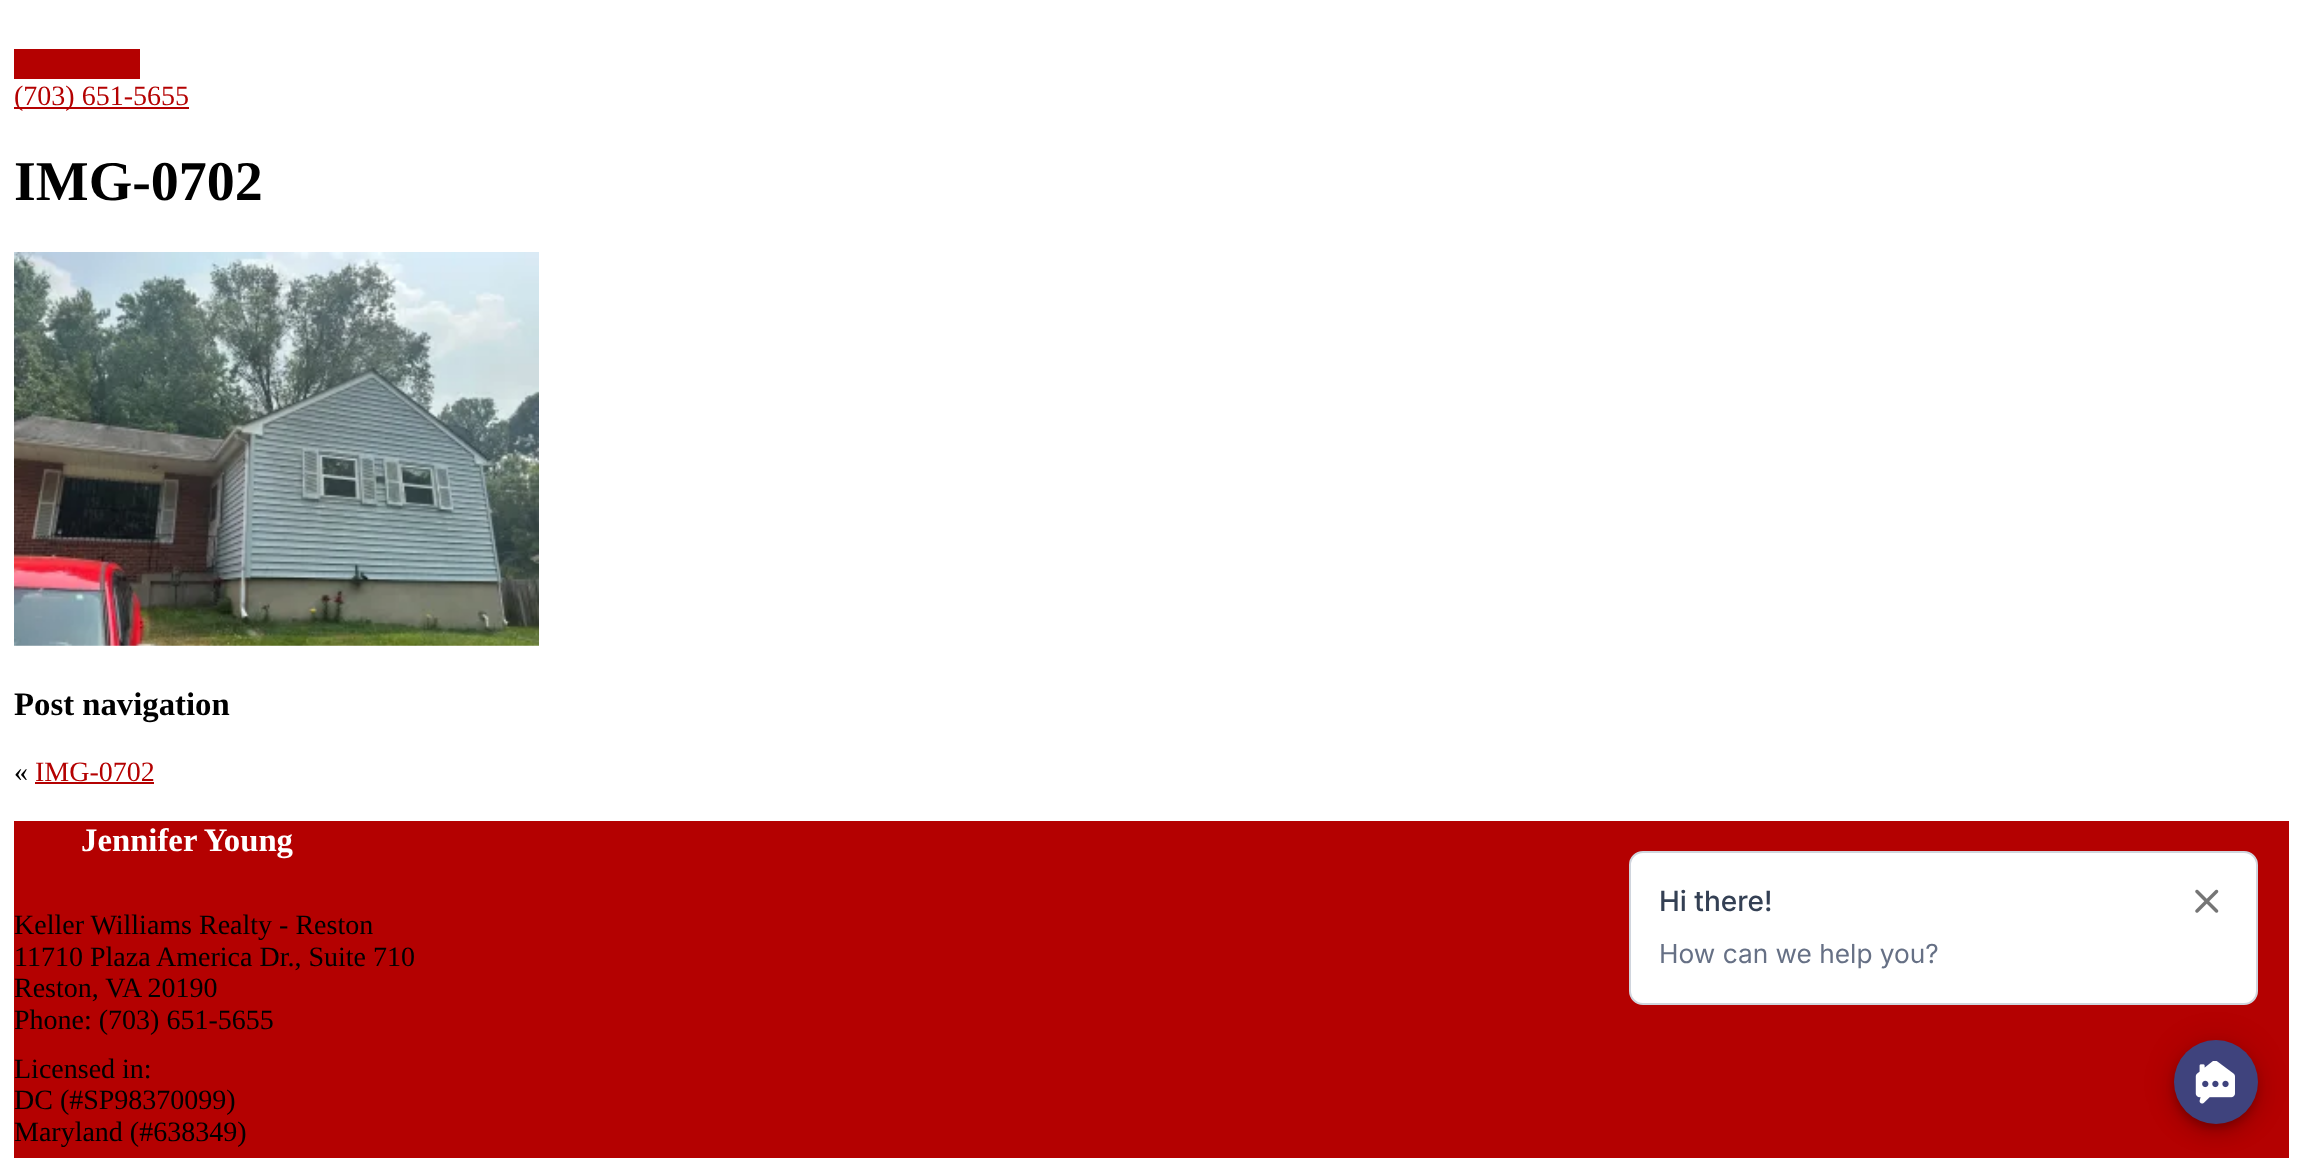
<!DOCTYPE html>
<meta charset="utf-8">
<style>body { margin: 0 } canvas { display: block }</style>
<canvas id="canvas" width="2303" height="1158"></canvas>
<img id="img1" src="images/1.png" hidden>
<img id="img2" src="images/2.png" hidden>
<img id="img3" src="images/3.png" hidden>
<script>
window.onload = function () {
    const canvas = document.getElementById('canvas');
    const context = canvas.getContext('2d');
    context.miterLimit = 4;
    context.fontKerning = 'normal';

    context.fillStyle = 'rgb(255, 255, 255)';
    context.fillRect(0, 0, 2303, 1158);
    context.fillStyle = 'rgb(180, 1, 1)';
    context.fillRect(14, 49, 126, 30);
    context.fillRect(14, 107, 175, 2);
    context.drawImage(document.getElementById('img1'), 14, 252, 525, 394);
    context.fillRect(35, 782, 119, 2);
    context.fillRect(14, 821, 2275, 337);
    context.fillStyle = 'rgba(0, 0, 0, 0.12)';
    context.filter = 'blur(16px)';
    context.beginPath();
    context.roundRect(2174, 1041, 84, 84, 42);
    context.fill();
    context.filter = 'none';
    context.fillStyle = 'rgb(255, 255, 255)';
    context.beginPath();
    context.roundRect(1630, 852, 627, 152, 13);
    context.fill();
    context.strokeStyle = 'rgb(208, 213, 221)';
    context.lineWidth = 2;
    context.stroke();
    context.drawImage(document.getElementById('img2'), 2195, 889, 24, 24);
    context.fillStyle = 'rgba(0, 0, 0, 0.14)';
    context.filter = 'blur(9px)';
    context.beginPath();
    context.roundRect(2174, 1050, 84, 84, 42);
    context.fill();
    context.filter = 'none';
    context.fillStyle = 'rgba(0, 0, 0, 0.2)';
    context.filter = 'blur(4.5px)';
    context.beginPath();
    context.roundRect(2175, 1047, 81, 80, 40);
    context.fill();
    context.filter = 'none';
    context.fillStyle = 'rgb(63, 67, 125)';
    context.beginPath();
    context.arc(2216, 1082, 42, 0, 2 * Math.PI);
    context.fill();
    context.drawImage(document.getElementById('img3'), 2195, 1061, 40, 43);
    context.font = '28px Liberation Serif';
    context.fillStyle = 'rgb(180, 1, 1)';
    context.fillText('(703) 651-5655', 14, 105);
    context.font = 'bold 56px Liberation Serif';
    context.fillStyle = 'rgb(0, 0, 0)';
    context.fillText('IMG-0702', 14, 200);
    context.font = 'bold 32.75px Liberation Serif';
    context.fillText('Post navigation', 14, 715);
    context.font = '28px Liberation Serif';
    context.fillText('«', 14, 781);
    context.fillStyle = 'rgb(180, 1, 1)';
    context.fillText('IMG-0702', 35, 781);
    context.font = 'bold 32.75px Liberation Serif';
    context.fillStyle = 'rgb(255, 255, 255)';
    context.fillText('Jennifer Young', 81, 851);
    context.font = '28px Liberation Serif';
    context.fillStyle = 'rgb(0, 0, 0)';
    context.fillText('Keller Williams Realty - Reston', 14, 934);
    context.fillText('11710 Plaza America Dr., Suite 710', 14, 966);
    context.fillText('Reston, VA 20190', 14, 997);
    context.fillText('Phone: (703) 651-5655', 14, 1029);
    context.fillText('Licensed in:', 14, 1078);
    context.fillText('DC (#SP98370099)', 14, 1109);
    context.fillText('Maryland (#638349)', 14, 1141);
    context.font = '500 28px Inter';
    context.fillStyle = 'rgb(52, 64, 84)';
    context.fillText('Hi there!', 1659, 911);
    context.font = '26.25px Inter';
    context.fillStyle = 'rgb(102, 112, 133)';
    context.fillText('How can we help you?', 1659, 963);
};
</script>
